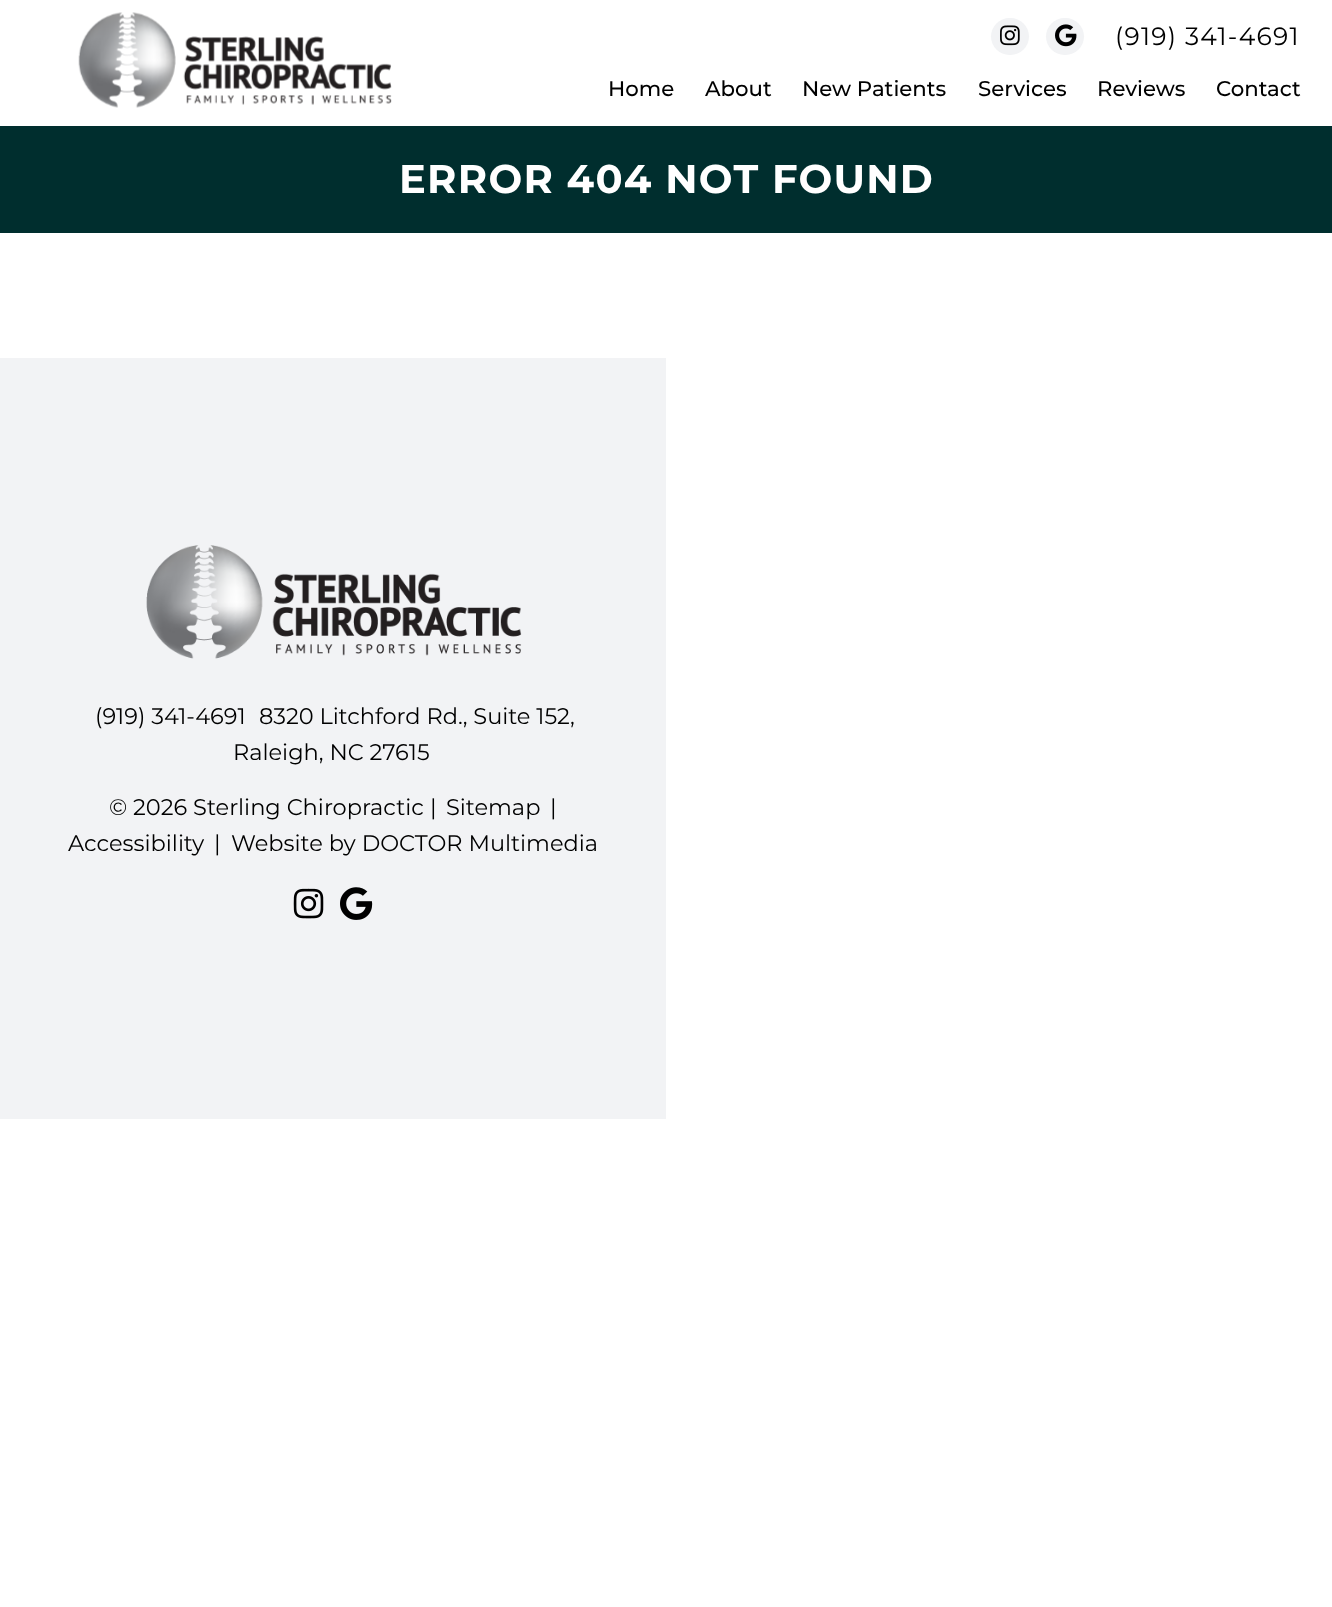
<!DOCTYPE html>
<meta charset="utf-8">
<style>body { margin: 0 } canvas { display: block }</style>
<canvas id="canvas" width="1332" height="1607"></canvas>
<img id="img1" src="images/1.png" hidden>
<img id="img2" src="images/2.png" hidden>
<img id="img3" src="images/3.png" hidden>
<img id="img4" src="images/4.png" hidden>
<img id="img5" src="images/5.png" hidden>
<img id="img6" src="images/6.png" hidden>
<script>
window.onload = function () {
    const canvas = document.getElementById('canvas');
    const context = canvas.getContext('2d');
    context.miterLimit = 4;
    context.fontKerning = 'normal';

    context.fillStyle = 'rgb(255, 255, 255)';
    context.fillRect(0, 0, 1332, 1607);
    context.drawImage(document.getElementById('img1'), 78, 12, 314, 96);
    context.fillStyle = 'rgb(242, 243, 245)';
    context.beginPath();
    context.roundRect(991, 18, 38, 37, 18.5);
    context.fill();
    context.drawImage(document.getElementById('img2'), 1000, 25, 20, 21);
    context.beginPath();
    context.roundRect(1046, 18, 38, 37, 18.5);
    context.fill();
    context.drawImage(document.getElementById('img3'), 1055, 24, 22, 23);
    context.fillStyle = 'rgb(0, 46, 46)';
    context.fillRect(0, 126, 1332, 107);
    context.fillStyle = 'rgb(242, 243, 245)';
    context.fillRect(0, 358, 666, 761);
    context.drawImage(document.getElementById('img4'), 146, 545, 376, 114);
    context.drawImage(document.getElementById('img5'), 293, 888, 31, 31);
    context.drawImage(document.getElementById('img6'), 340, 887, 33, 33);
    context.letterSpacing = '1.25px';
    context.font = '25px Montserrat';
    context.fillStyle = 'rgb(0, 0, 0)';
    context.fillText('(919) 341-4691', 1115, 45);
    context.letterSpacing = '0px';
    context.font = '500 21.25px Montserrat';
    context.fillText('Home', 608, 96);
    context.fillText('About', 705, 96);
    context.fillText('New Patients', 802, 96);
    context.fillText('Services', 978, 96);
    context.fillText('Reviews', 1097, 96);
    context.fillText('Contact', 1216, 96);
    context.letterSpacing = '1.25px';
    context.font = 'bold 40px Montserrat';
    context.fillStyle = 'rgb(255, 255, 255)';
    context.fillText('ERROR 404 NOT FOUND', 399, 193);
    context.letterSpacing = '0px';
    context.font = '22.5px Montserrat';
    context.fillStyle = 'rgb(0, 0, 0)';
    context.fillText('(919) 341-4691', 95, 724);
    context.fillText('8320 Litchford Rd., Suite 152,', 259, 724);
    context.fillText('Raleigh, NC 27615', 233, 760);
    context.fillText('© 2026 Sterling Chiropractic |', 109, 815);
    context.fillText('Sitemap', 446, 815);
    context.fillText('|', 550, 815);
    context.fillText('Accessibility', 68, 851);
    context.fillText('|', 214, 851);
    context.fillText('Website by DOCTOR Multimedia', 231, 851);
};
</script>
